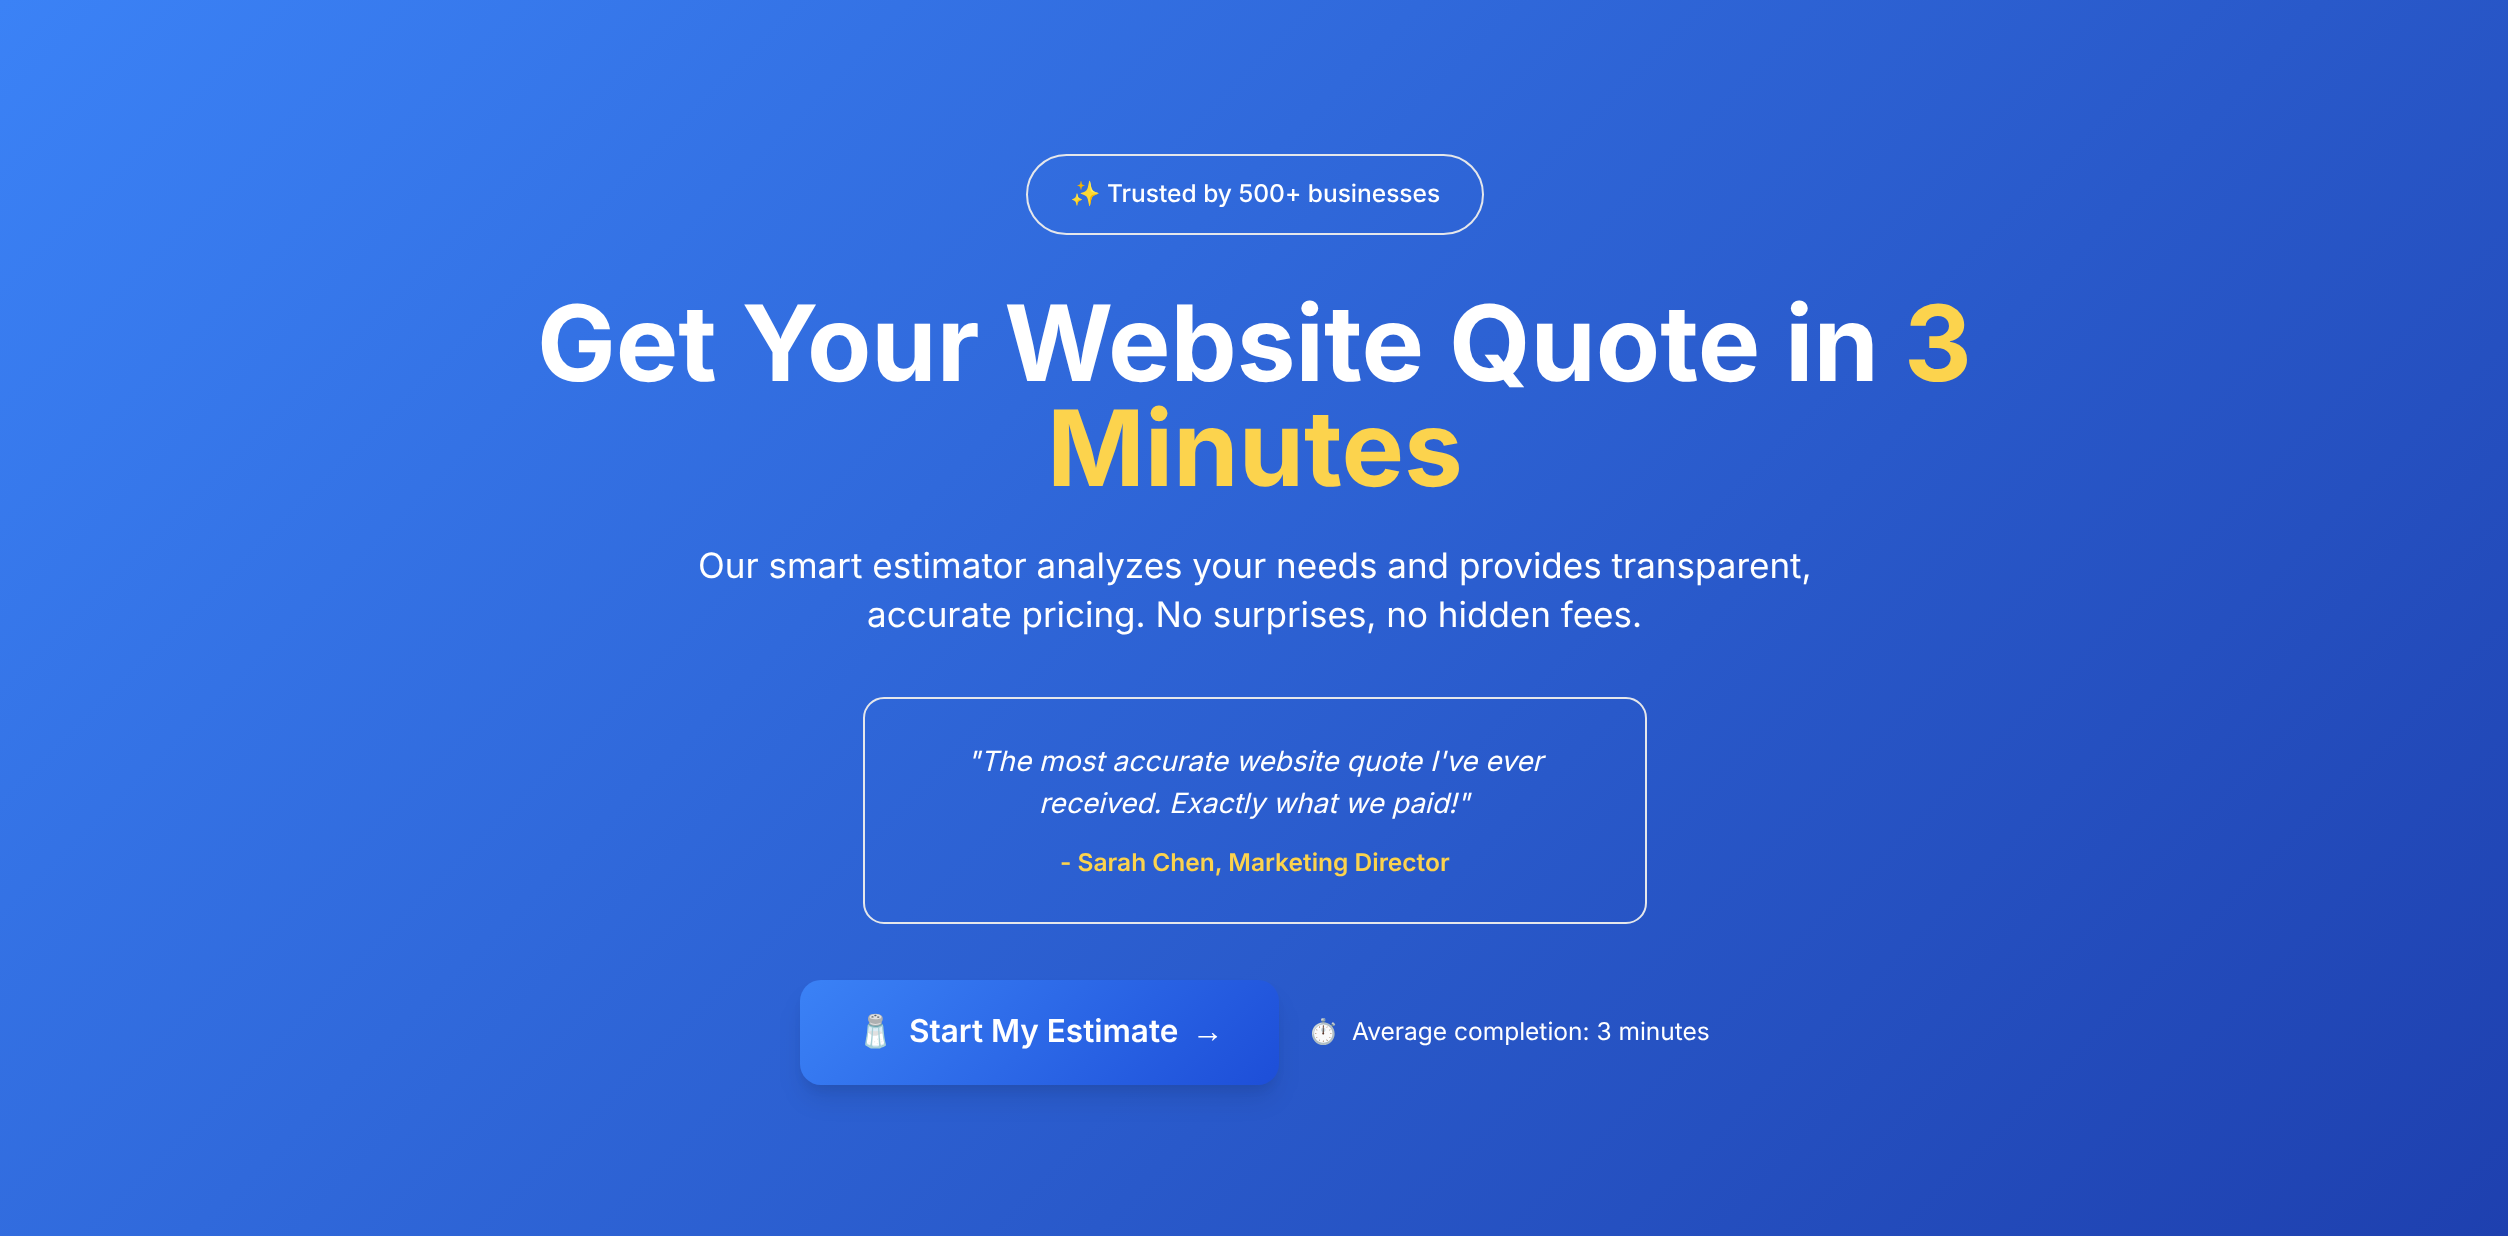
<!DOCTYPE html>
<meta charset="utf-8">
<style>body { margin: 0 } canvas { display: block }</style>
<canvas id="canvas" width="2508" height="1236"></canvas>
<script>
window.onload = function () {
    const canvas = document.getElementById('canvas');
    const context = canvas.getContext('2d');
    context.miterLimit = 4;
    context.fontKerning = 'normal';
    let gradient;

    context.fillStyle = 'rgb(255, 255, 255)';
    context.fillRect(0, 0, 2508, 1236);
    gradient = context.createLinearGradient(318, -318, 2191, 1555);
    gradient.addColorStop(0, 'rgb(59, 130, 246)');
    gradient.addColorStop(1, 'rgb(30, 64, 175)');
    context.fillStyle = gradient;
    context.fillRect(0, 0, 2508, 1236);
    context.beginPath();
    context.roundRect(1027, 155, 456, 79, 39.5);
    context.strokeStyle = 'rgb(229, 231, 235)';
    context.lineWidth = 2;
    context.stroke();
    context.beginPath();
    context.roundRect(864, 698, 782, 225, 20);
    context.stroke();
    context.fillStyle = 'rgba(0, 0, 0, 0.05)';
    context.filter = 'blur(5px)';
    context.beginPath();
    context.roundRect(803, 991, 473, 98, 18);
    context.fill();
    context.filter = 'none';
    context.fillStyle = 'rgba(0, 0, 0, 0.1)';
    context.filter = 'blur(13px)';
    context.beginPath();
    context.roundRect(805, 1003, 469, 94, 16);
    context.fill();
    context.filter = 'none';
    gradient = context.createLinearGradient(893, 886, 1186, 1179);
    gradient.addColorStop(0, 'rgb(59, 130, 246)');
    gradient.addColorStop(1, 'rgb(29, 78, 216)');
    context.fillStyle = gradient;
    context.beginPath();
    context.roundRect(800, 980, 479, 105, 21);
    context.fill();
    context.font = '24.5px Noto Color Emoji';
    context.fillStyle = 'rgb(255, 255, 255)';
    context.fillText('✨', 1070, 202);
    context.font = '500 24.5px Inter';
    context.fillText('Trusted by 500+ businesses', 1107, 202);
    context.font = 'bold 105px Inter';
    context.fillText('Get Your Website Quote in', 537, 381);
    context.fillStyle = 'rgb(252, 211, 77)';
    context.fillText('3', 1904, 381);
    context.fillText('Minutes', 1047, 486);
    context.font = '35px Inter';
    context.fillStyle = 'rgb(255, 255, 255)';
    context.fillText('Our smart estimator analyzes your needs and provides transparent,', 698, 578);
    context.fillText('accurate pricing. No surprises, no hidden fees.', 867, 627);
    context.font = 'italic 28px Inter';
    context.fillText('"The most accurate website quote I\'ve ever', 967, 771);
    context.fillText('received. Exactly what we paid!"', 1039, 813);
    context.font = '600 24.5px Inter';
    context.fillStyle = 'rgb(252, 211, 77)';
    context.fillText('- Sarah Chen, Marketing Director', 1060, 871);
    context.font = 'bold 31.5px Noto Color Emoji';
    context.fillStyle = 'rgb(255, 255, 255)';
    context.fillText('🧂', 856, 1042);
    context.font = '600 31.5px Inter';
    context.fillText('Start My Estimate', 909, 1042);
    context.font = 'bold 31.5px Liberation Sans';
    context.fillText('→', 1192, 1042);
    context.font = '24.5px Noto Color Emoji';
    context.fillText('⏱️', 1308, 1040);
    context.font = '24.5px Inter';
    context.fillText('Average completion: 3 minutes', 1352, 1040);
};
</script>
